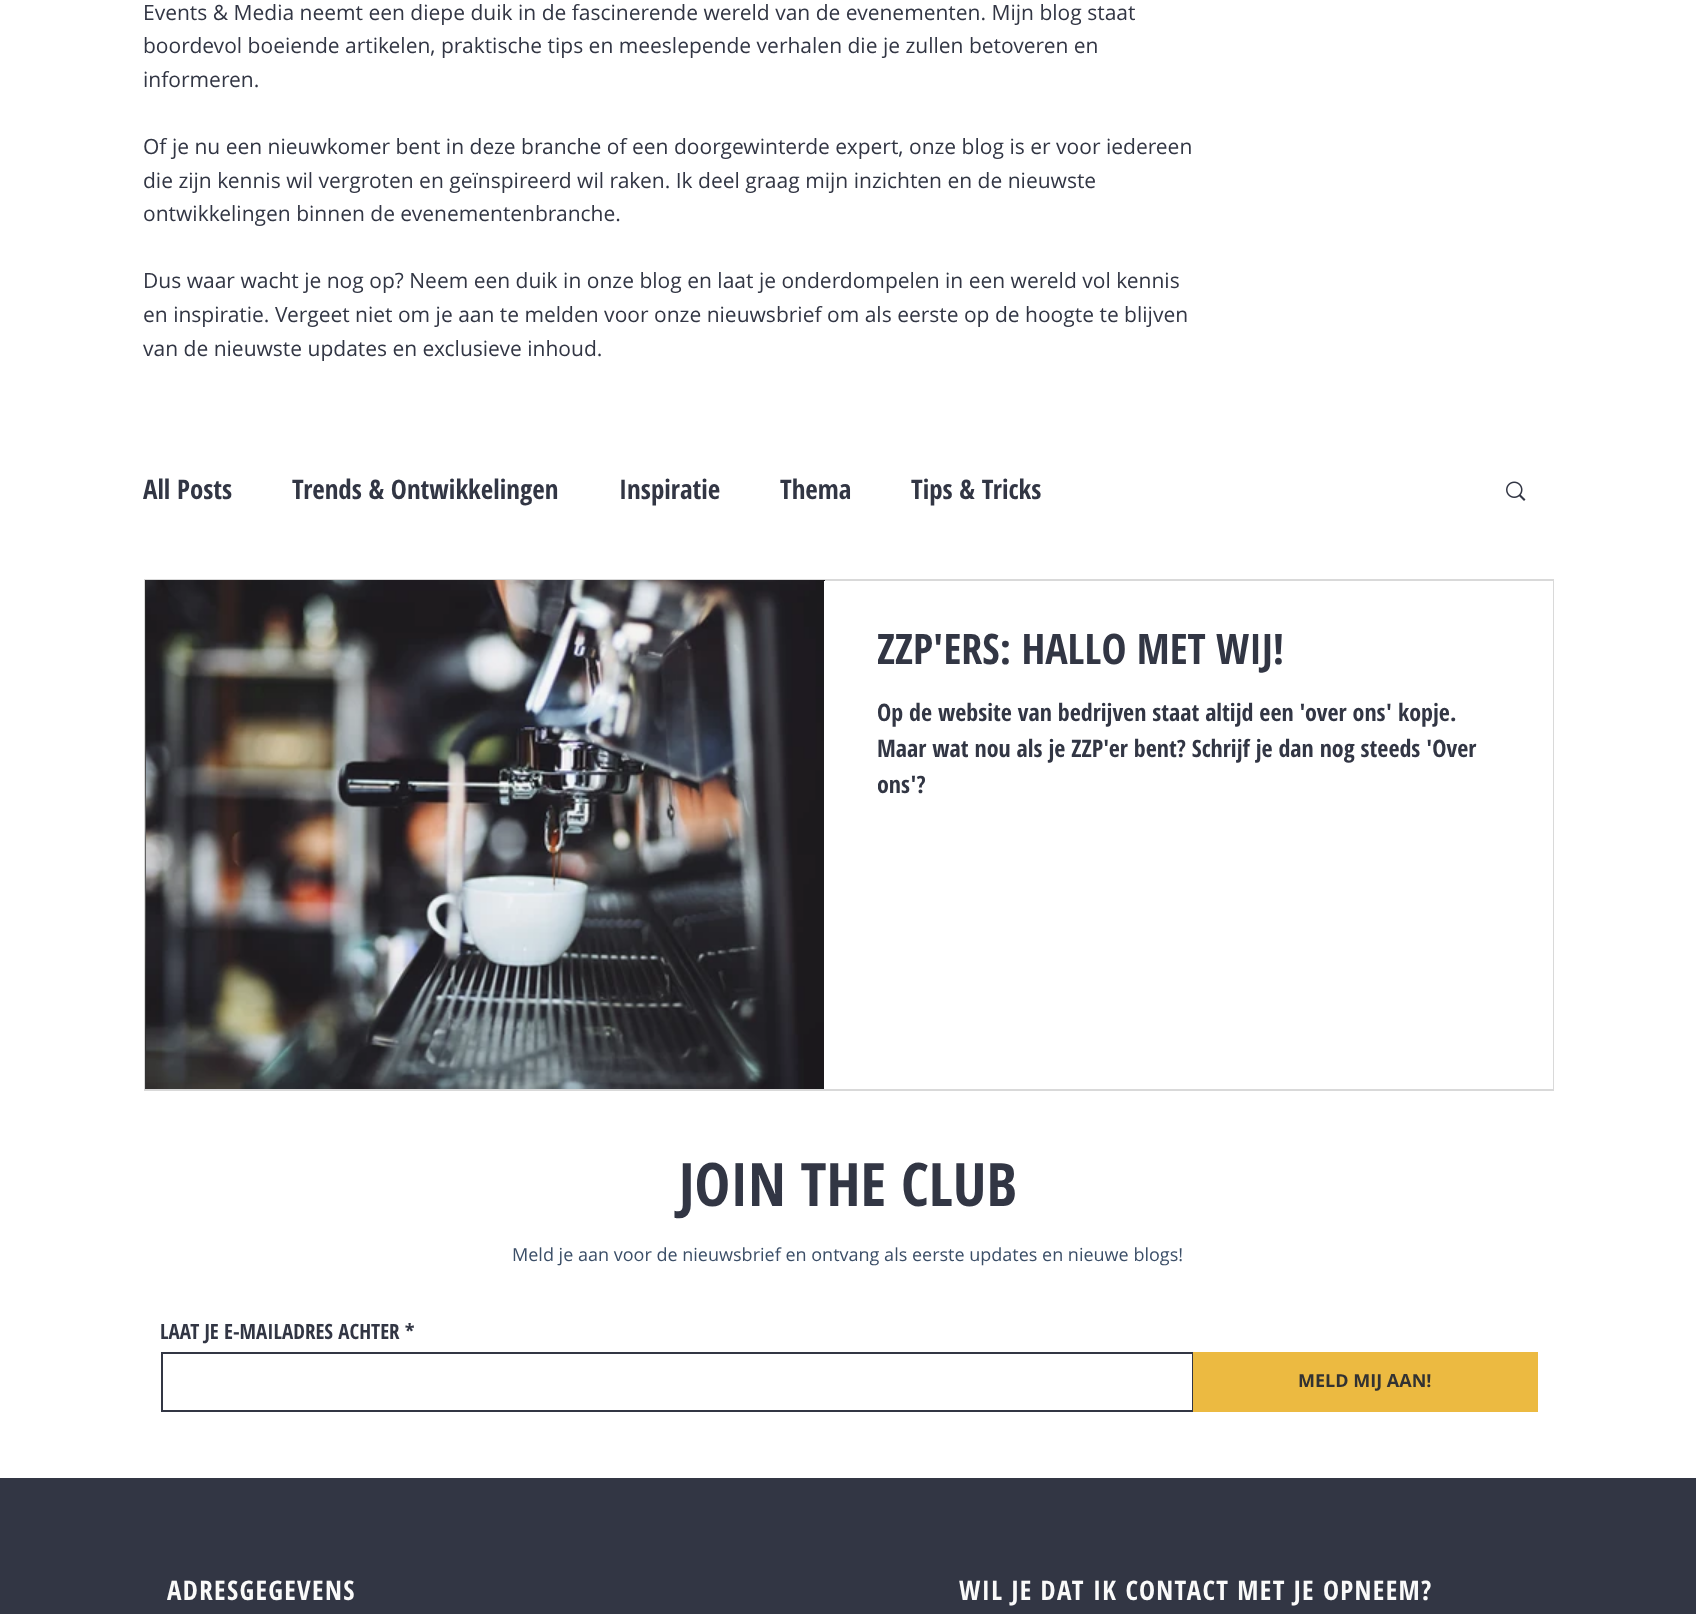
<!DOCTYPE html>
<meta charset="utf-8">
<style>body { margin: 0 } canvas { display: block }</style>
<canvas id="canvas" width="1696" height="1614"></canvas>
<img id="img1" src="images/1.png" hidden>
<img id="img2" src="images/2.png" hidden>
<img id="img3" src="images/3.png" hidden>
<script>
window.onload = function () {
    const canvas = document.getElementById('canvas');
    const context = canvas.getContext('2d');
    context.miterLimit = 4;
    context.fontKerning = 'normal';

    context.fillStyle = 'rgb(255, 255, 255)';
    context.fillRect(0, 0, 1696, 1614);
    context.drawImage(document.getElementById('img1'), 1506, 481, 20, 20);
    context.strokeStyle = 'rgb(217, 217, 217)';
    context.lineWidth = 2;
    context.strokeRect(145, 580, 1408, 510);
    context.drawImage(document.getElementById('img2'), 145, 580, 1, 509);
    context.drawImage(document.getElementById('img3'), 146, 580, 679, 509);
    context.fillRect(824, 581, 729, 508);
    context.strokeStyle = 'rgb(50, 54, 68)';
    context.strokeRect(162, 1353, 1031, 58);
    context.fillStyle = 'rgb(236, 186, 65)';
    context.fillRect(1193, 1352, 345, 60);
    context.fillStyle = 'rgb(50, 54, 68)';
    context.fillRect(0, 1478, 1696, 136);
    context.font = '21px Open Sans';
    context.fillText('Events & Media neemt een diepe duik in de fascinerende wereld van de evenementen. Mijn blog staat', 143, 20);
    context.fillText('boordevol boeiende artikelen, praktische tips en meeslepende verhalen die je zullen betoveren en', 143, 53);
    context.fillText('informeren.', 143, 87);
    context.fillText('Of je nu een nieuwkomer bent in deze branche of een doorgewinterde expert, onze blog is er voor iedereen', 143, 154);
    context.fillText('die zijn kennis wil vergroten en geïnspireerd wil raken. Ik deel graag mijn inzichten en de nieuwste', 143, 188);
    context.fillText('ontwikkelingen binnen de evenementenbranche.', 143, 221);
    context.fillText('Dus waar wacht je nog op? Neem een duik in onze blog en laat je onderdompelen in een wereld vol kennis', 143, 288);
    context.fillText('en inspiratie. Vergeet niet om je aan te melden voor onze nieuwsbrief om als eerste op de hoogte te blijven', 143, 322);
    context.fillText('van de nieuwste updates en exclusieve inhoud.', 143, 356);
    context.font = 'bold 27px Open Sans Condensed';
    context.fillText('All Posts', 143, 499);
    context.fillText('Trends & Ontwikkelingen', 292, 499);
    context.fillText('Inspiratie', 619, 499);
    context.fillText('Thema', 780, 499);
    context.fillText('Tips & Tricks', 911, 499);
    context.save();
    context.beginPath();
    context.rect(878, 618, 621, 57);
    context.clip();
    context.font = 'bold 42px Open Sans Condensed';
    context.fillText('ZZP\'ERS: HALLO MET WIJ!', 877, 664);
    context.restore();
    context.save();
    context.beginPath();
    context.rect(878, 693, 621, 108);
    context.clip();
    context.font = 'bold 24px Open Sans Condensed';
    context.fillText('Op de website van bedrijven staat altijd een \'over ons\' kopje.', 877, 721);
    context.restore();
    context.font = 'bold 24px Open Sans Condensed';
    context.fillText('Maar wat nou als je ZZP\'er bent? Schrijf je dan nog steeds \'Over', 877, 757);
    context.save();
    context.beginPath();
    context.rect(878, 693, 621, 108);
    context.clip();
    context.fillText('ons\'?', 877, 793);
    context.restore();
    context.font = 'bold 60px Open Sans Condensed';
    context.fillText('JOIN THE CLUB', 679, 1206);
    context.font = '18px Open Sans';
    context.fillStyle = 'rgb(59, 78, 103)';
    context.fillText('Meld je aan voor de nieuwsbrief en ontvang als eerste updates en nieuwe blogs!', 512, 1261);
    context.font = 'bold 21px Open Sans Condensed';
    context.fillStyle = 'rgb(50, 54, 68)';
    context.fillText('LAAT JE E-MAILADRES ACHTER *', 160, 1339);
    context.font = 'bold 18px Open Sans';
    context.fillStyle = 'rgb(50, 50, 50)';
    context.fillText('MELD MIJ AAN!', 1298, 1387);
    context.letterSpacing = '1.35px';
    context.font = 'bold 27px Open Sans Condensed';
    context.fillStyle = 'rgb(250, 250, 250)';
    context.fillText('ADRESGEGEVENS', 167, 1600);
    context.fillText('WIL JE DAT IK CONTACT MET JE OPNEEM?', 959, 1600);
};
</script>
